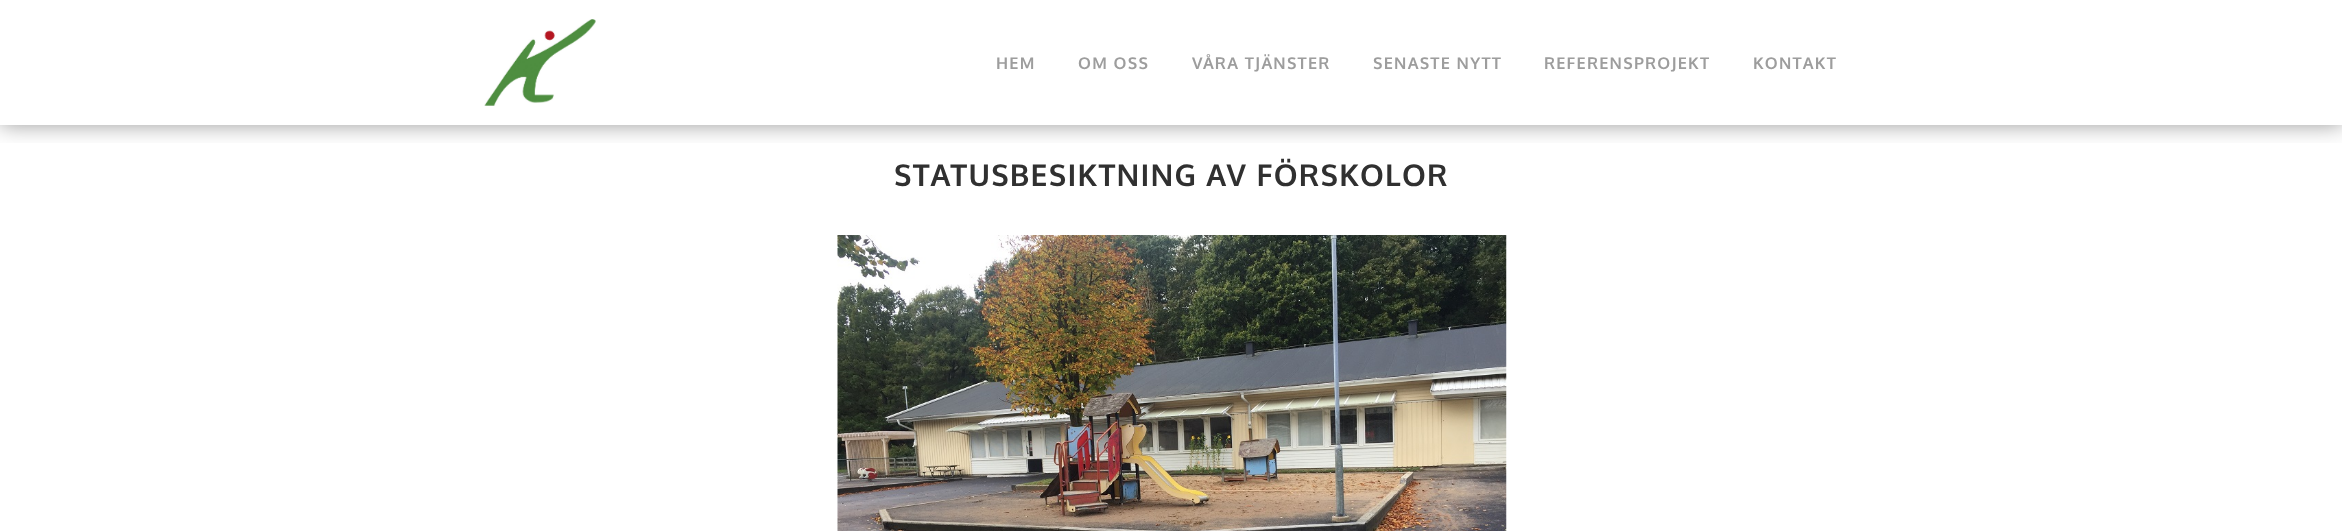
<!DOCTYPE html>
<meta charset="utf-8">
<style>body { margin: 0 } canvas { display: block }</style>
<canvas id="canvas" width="2342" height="531"></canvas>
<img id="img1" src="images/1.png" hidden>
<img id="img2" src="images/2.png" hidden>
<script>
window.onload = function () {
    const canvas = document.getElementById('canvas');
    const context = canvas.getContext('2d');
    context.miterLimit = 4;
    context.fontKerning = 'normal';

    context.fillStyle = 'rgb(255, 255, 255)';
    context.fillRect(0, 0, 2342, 531);
    context.save();
    context.beginPath();
    context.rect(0, 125, 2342, 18);
    context.clip();
    context.fillStyle = 'rgba(0, 0, 0, 0.4)';
    context.filter = 'blur(11px)';
    context.beginPath();
    context.rect(0, 0, 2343, 125);
    context.fill();
    context.filter = 'none';
    context.restore();
    context.drawImage(document.getElementById('img1'), 484, 19, 112, 87);
    context.drawImage(document.getElementById('img2'), 837, 235, 670, 296);
    context.letterSpacing = '1.25px';
    context.font = 'bold 16.25px Oxygen';
    context.fillStyle = 'rgb(157, 157, 157)';
    context.fillText('HEM', 996, 69);
    context.fillText('OM OSS', 1078, 69);
    context.fillText('VÅRA TJÄNSTER', 1192, 69);
    context.fillText('SENASTE NYTT', 1373, 69);
    context.fillText('REFERENSPROJEKT', 1544, 69);
    context.fillText('KONTAKT', 1753, 69);
    context.font = 'bold 30px Oxygen';
    context.fillStyle = 'rgb(48, 48, 48)';
    context.fillText('STATUSBESIKTNING AV FÖRSKOLOR', 894, 186);
};
</script>
